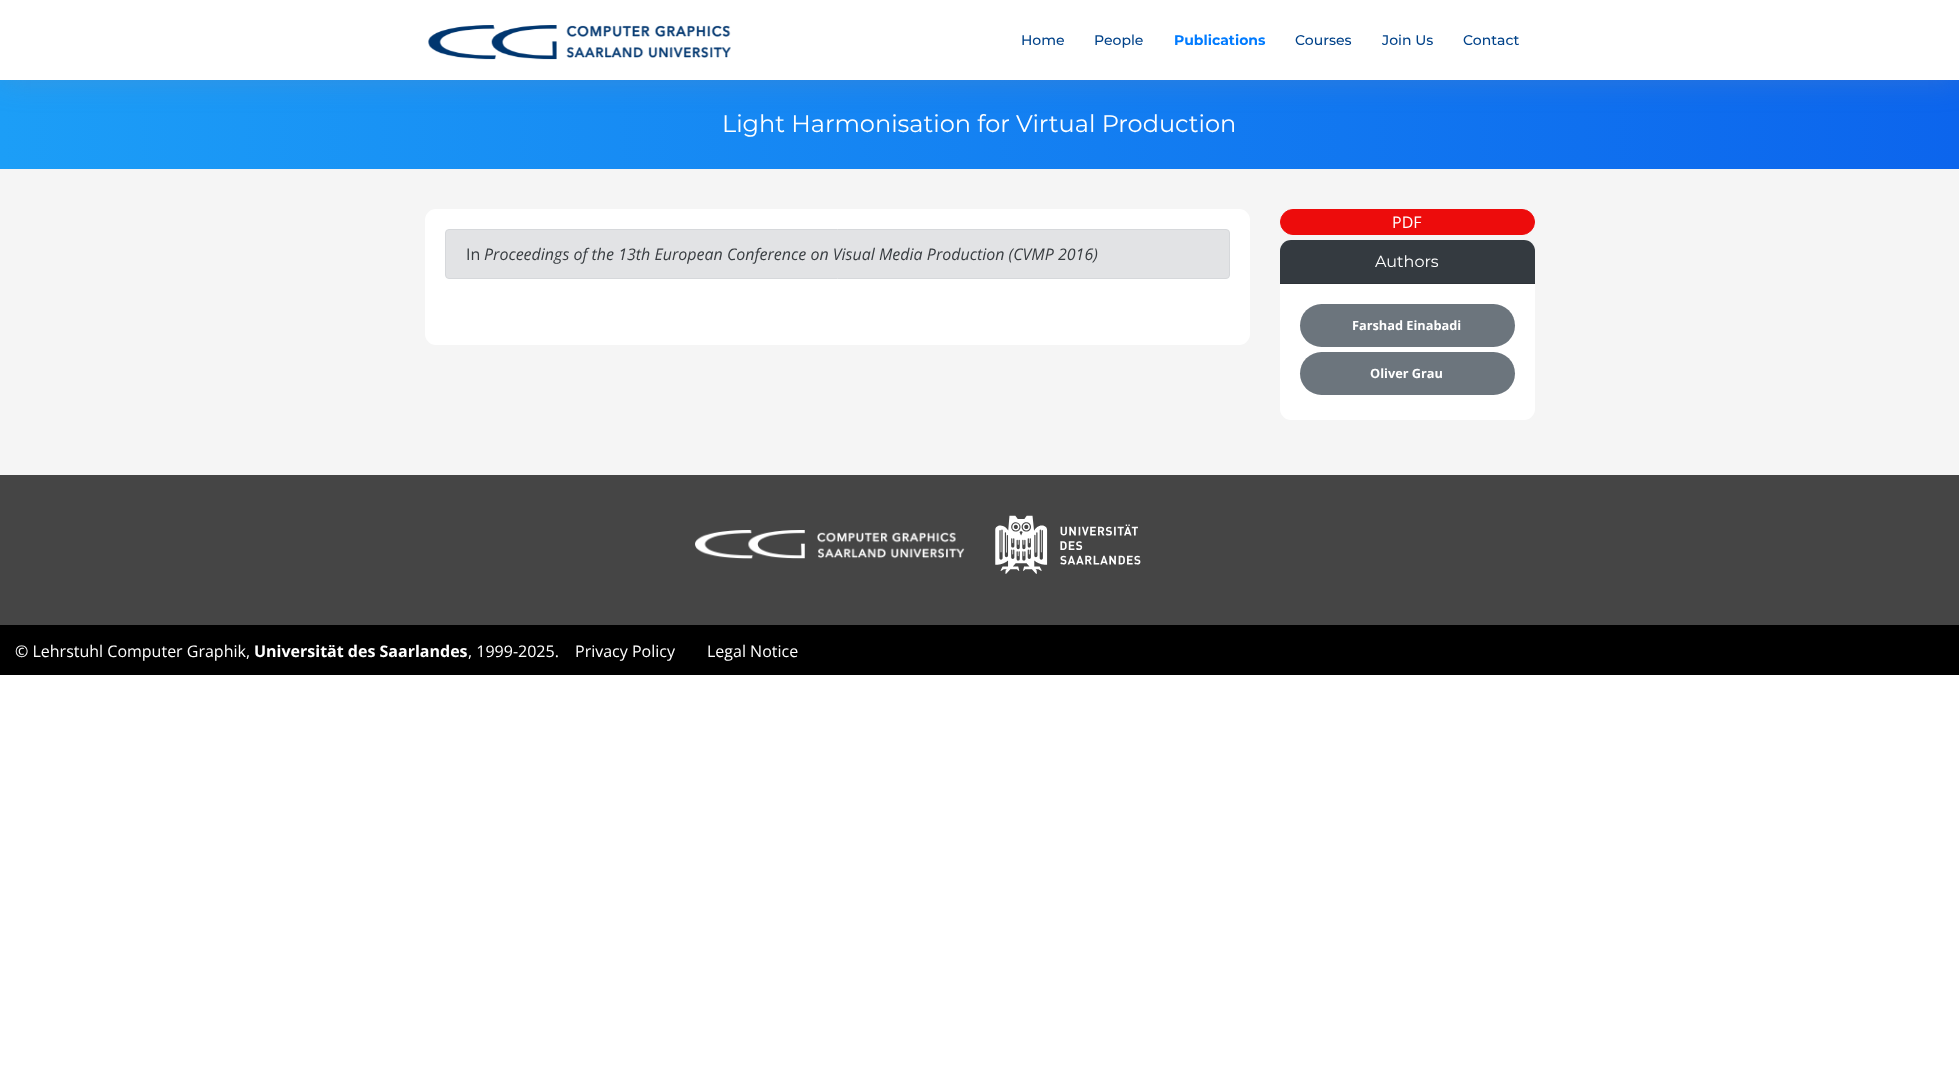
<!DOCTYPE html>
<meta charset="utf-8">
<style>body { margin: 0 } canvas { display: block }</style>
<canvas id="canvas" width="1959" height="1079"></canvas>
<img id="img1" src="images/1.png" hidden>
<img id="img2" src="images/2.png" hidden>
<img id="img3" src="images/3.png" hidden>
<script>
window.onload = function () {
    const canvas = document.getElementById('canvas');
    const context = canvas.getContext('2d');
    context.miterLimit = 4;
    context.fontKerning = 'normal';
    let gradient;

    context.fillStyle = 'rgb(255, 255, 255)';
    context.fillRect(0, 0, 1959, 1079);
    gradient = context.createLinearGradient(0, 85, 1959, 84);
    gradient.addColorStop(0, 'rgb(28, 158, 247)');
    gradient.addColorStop(1, 'rgb(12, 101, 237)');
    context.fillStyle = gradient;
    context.fillRect(0, 80, 1959, 89);
    context.fillStyle = 'rgba(127, 137, 161, 0.3)';
    context.filter = 'blur(15px)';
    context.beginPath();
    context.rect(0, 0, 1959, 80);
    context.fill();
    context.filter = 'none';
    context.fillStyle = 'rgb(255, 255, 255)';
    context.fillRect(0, 0, 1959, 80);
    context.drawImage(document.getElementById('img1'), 428, 25, 303, 35);
    context.fillStyle = 'rgb(245, 245, 245)';
    context.fillRect(0, 169, 1959, 306);
    context.fillStyle = 'rgb(255, 255, 255)';
    context.beginPath();
    context.roundRect(425, 209, 825, 136, 11);
    context.fill();
    context.fillStyle = 'rgb(226, 227, 229)';
    context.beginPath();
    context.roundRect(445.5, 229.5, 784, 49, 3.5);
    context.fill();
    context.strokeStyle = 'rgb(214, 216, 219)';
    context.stroke();
    context.fillStyle = 'rgb(237, 12, 12)';
    context.beginPath();
    context.roundRect(1280.5, 209.5, 254, 25, 12.5);
    context.fill();
    context.strokeStyle = 'rgb(237, 12, 12)';
    context.stroke();
    context.fillStyle = 'rgb(255, 255, 255)';
    context.beginPath();
    context.roundRect(1280, 240, 255, 180, 11);
    context.fill();
    context.fillStyle = 'rgb(52, 58, 64)';
    context.beginPath();
    context.roundRect(1280, 240, 255, 44, [11, 11, 0, 0]);
    context.fill();
    context.fillStyle = 'rgb(46, 51, 56)';
    context.fillRect(1280, 283, 255, 1);
    context.fillStyle = 'rgb(108, 117, 125)';
    context.beginPath();
    context.roundRect(1300, 304, 215, 43, 21.5);
    context.fill();
    context.beginPath();
    context.roundRect(1300, 352, 215, 43, 21.5);
    context.fill();
    context.fillStyle = 'rgb(69, 69, 69)';
    context.fillRect(0, 475, 1959, 150);
    context.drawImage(document.getElementById('img2'), 695, 530, 270, 29);
    context.drawImage(document.getElementById('img3'), 995, 515, 146, 59);
    context.fillStyle = 'rgb(0, 0, 0)';
    context.fillRect(0, 625, 1959, 50);
    context.font = '100 14px "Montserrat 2"';
    context.fillStyle = 'rgb(0, 66, 137)';
    context.fillText('Home', 1021, 45);
    context.fillText('People', 1094, 45);
    context.font = '100 14px "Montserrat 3"';
    context.fillStyle = 'rgb(0, 123, 255)';
    context.fillText('Publications', 1174, 45);
    context.font = '100 14px "Montserrat 2"';
    context.fillStyle = 'rgb(0, 66, 137)';
    context.fillText('Courses', 1295, 45);
    context.fillText('Join Us', 1382, 45);
    context.fillText('Contact', 1463, 45);
    context.font = '100 24px Montserrat';
    context.fillStyle = 'rgb(255, 255, 255)';
    context.fillText('Light Harmonisation for Virtual Production', 722, 132);
    context.font = '16px Open Sans';
    context.fillStyle = 'rgb(56, 61, 65)';
    context.fillText('In', 466, 260);
    context.font = 'italic 16px Open Sans';
    context.fillText('Proceedings of the 13th European Conference on Visual Media Production (CVMP 2016)', 484, 260);
    context.font = '16px Open Sans';
    context.fillStyle = 'rgb(255, 255, 255)';
    context.fillText('PDF', 1392, 228);
    context.font = '100 16px Montserrat';
    context.fillText('Authors', 1375, 267);
    context.font = 'bold 12.75px Open Sans';
    context.fillText('Farshad Einabadi', 1352, 330);
    context.fillText('Oliver Grau', 1370, 378);
    context.font = '16px Open Sans';
    context.fillText('© Lehrstuhl Computer Graphik,', 15, 657);
    context.font = 'bold 16px Open Sans';
    context.fillText('Universität des Saarlandes', 254, 657);
    context.font = '16px Open Sans';
    context.fillText(', 1999-2025.', 468, 657);
    context.fillText('Privacy Policy', 575, 657);
    context.fillText('Legal Notice', 707, 657);
};
</script>
